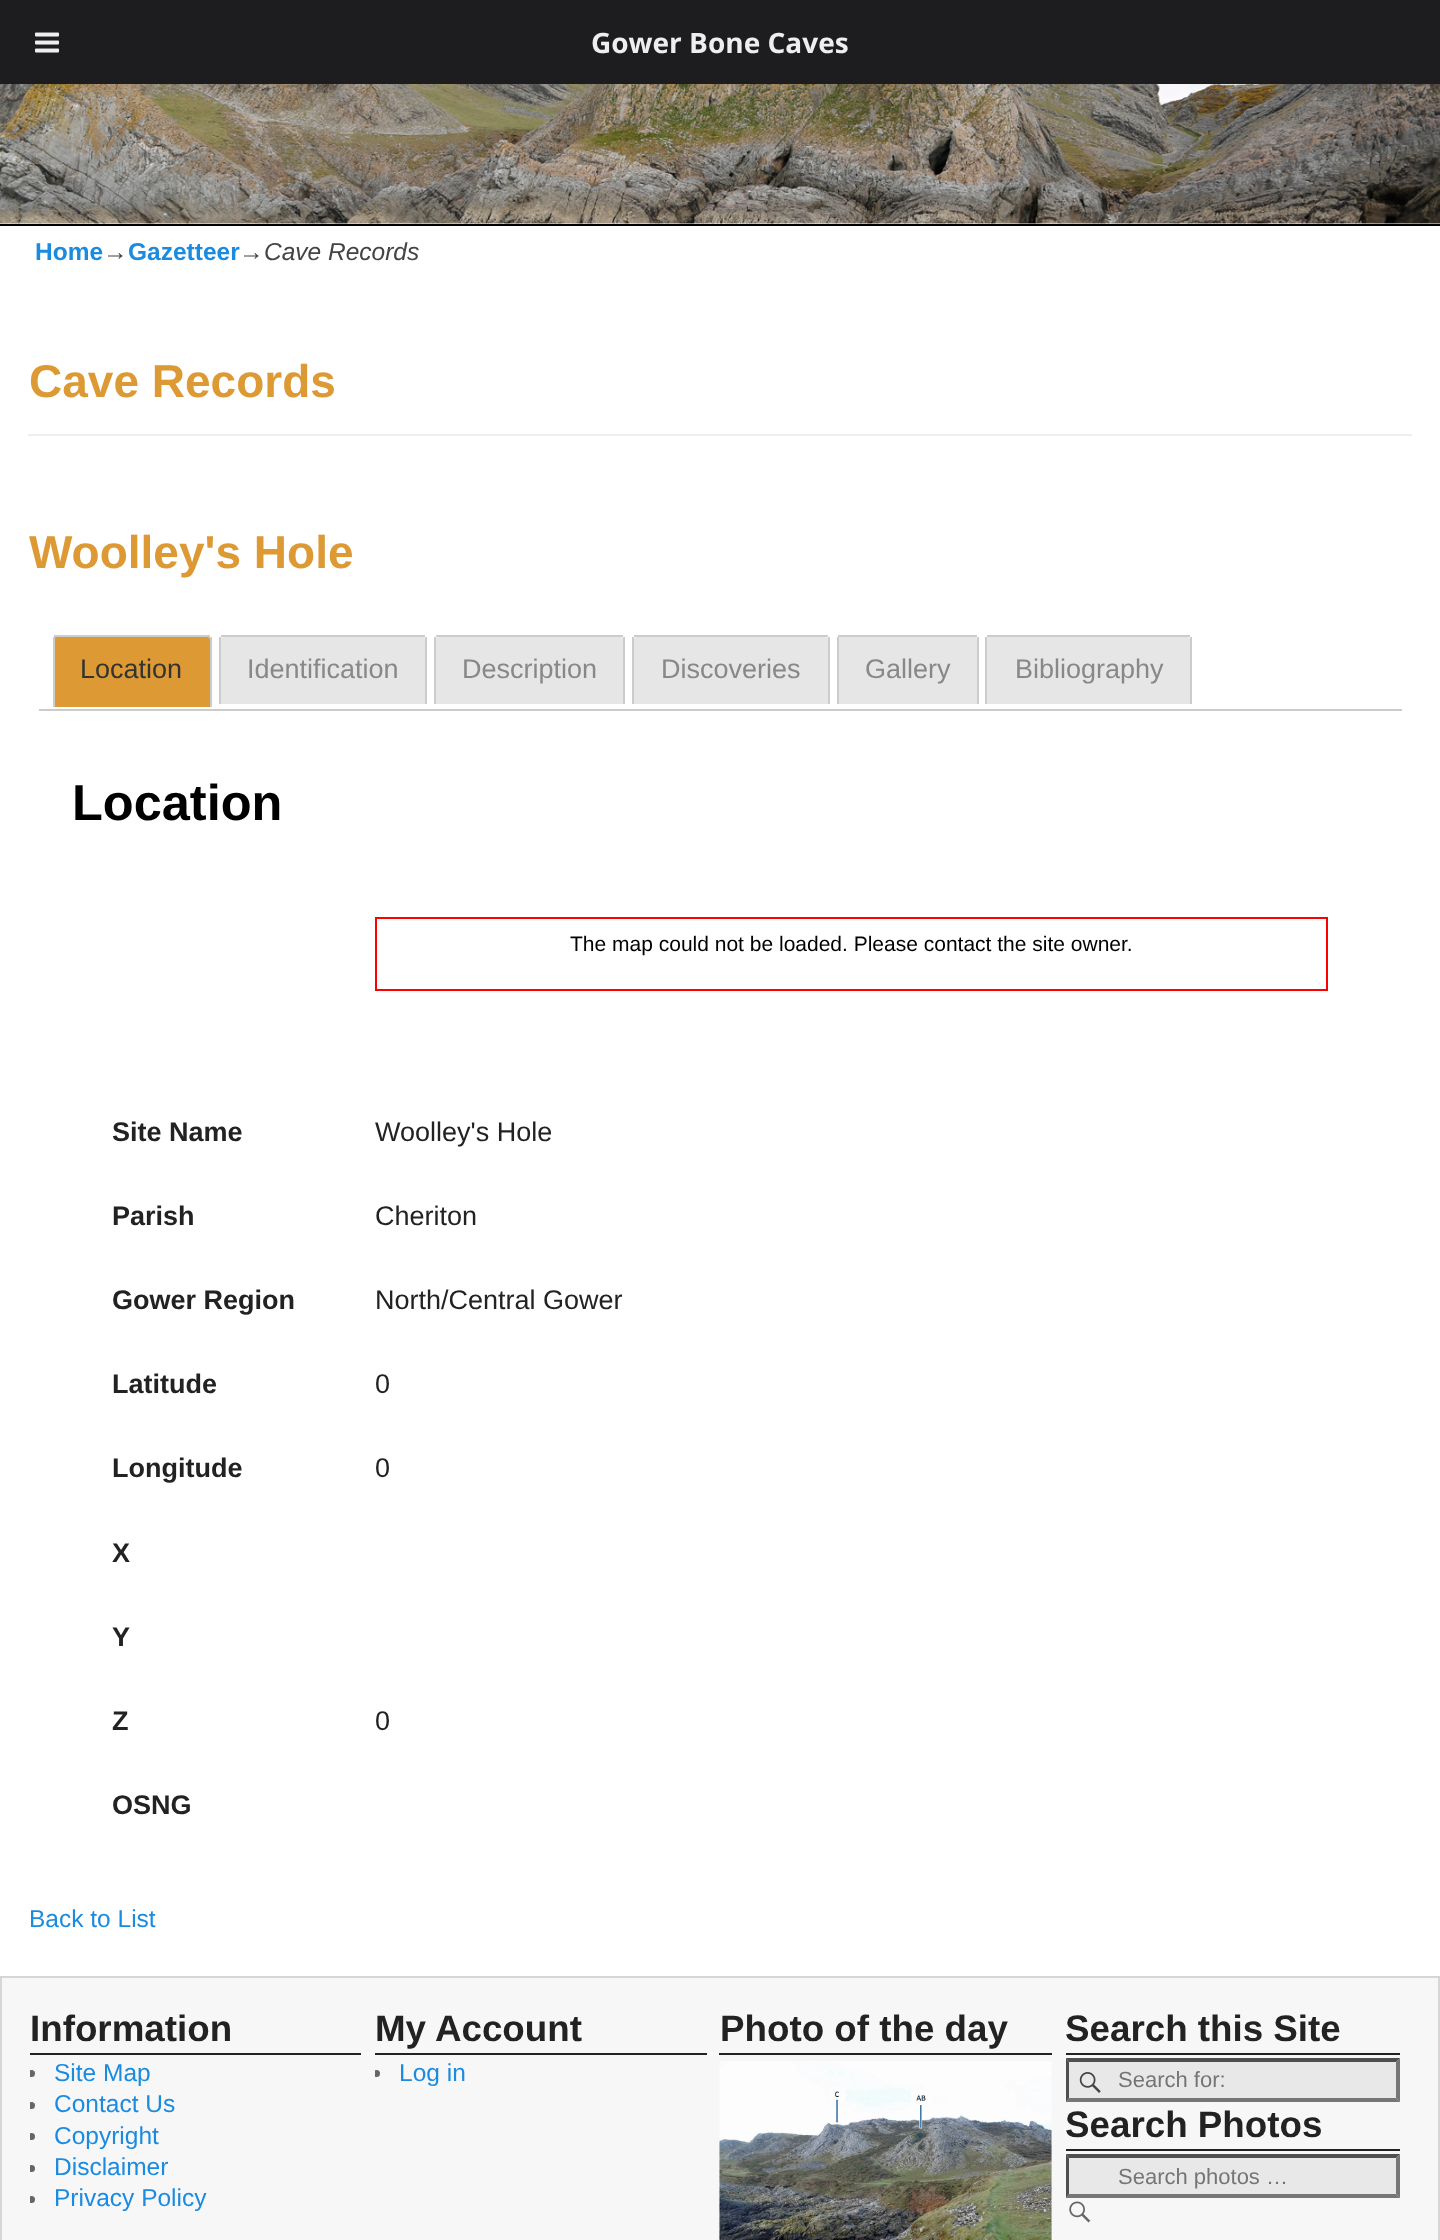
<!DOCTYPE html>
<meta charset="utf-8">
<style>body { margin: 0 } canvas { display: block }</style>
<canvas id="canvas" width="1440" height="2240"></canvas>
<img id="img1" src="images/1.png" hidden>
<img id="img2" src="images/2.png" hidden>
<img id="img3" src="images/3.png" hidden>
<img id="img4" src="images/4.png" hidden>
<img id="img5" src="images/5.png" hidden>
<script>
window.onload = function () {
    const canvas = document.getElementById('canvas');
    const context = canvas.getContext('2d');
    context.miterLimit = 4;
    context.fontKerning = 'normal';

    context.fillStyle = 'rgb(255, 255, 255)';
    context.fillRect(0, 0, 1440, 2240);
    context.fillStyle = 'rgb(29, 29, 32)';
    context.fillRect(0, 0, 1440, 84);
    context.drawImage(document.getElementById('img1'), 35, 32, 24, 21);
    context.fillStyle = 'rgb(0, 0, 0)';
    context.fillRect(0, 224, 1440, 2);
    context.drawImage(document.getElementById('img2'), 0, 84, 1440, 140);
    context.fillStyle = 'rgb(238, 238, 238)';
    context.fillRect(28, 434, 1384, 2);
    context.fillStyle = 'rgb(204, 204, 204)';
    context.fillRect(39, 709, 1363, 2);
    context.fillStyle = 'rgb(221, 153, 51)';
    context.beginPath();
    context.roundRect(54, 637, 156, 70, [2, 2, 0, 0]);
    context.fill();
    context.fillStyle = 'rgb(204, 204, 204)';
    context.fillRect(54, 635, 156, 2);
    context.fillRect(210, 637, 2, 70);
    context.fillRect(53, 637, 2, 70);
    context.fillStyle = 'rgb(230, 230, 230)';
    context.beginPath();
    context.roundRect(221, 637, 204, 67, [2, 2, 0, 0]);
    context.fill();
    context.fillStyle = 'rgb(204, 204, 204)';
    context.fillRect(221, 635, 204, 2);
    context.fillRect(425, 637, 2, 67);
    context.fillRect(219, 637, 2, 67);
    context.fillStyle = 'rgb(230, 230, 230)';
    context.beginPath();
    context.roundRect(436, 637, 187, 67, [2, 2, 0, 0]);
    context.fill();
    context.fillStyle = 'rgb(204, 204, 204)';
    context.fillRect(436, 635, 187, 2);
    context.fillRect(623, 637, 2, 67);
    context.fillRect(434, 637, 2, 67);
    context.fillStyle = 'rgb(230, 230, 230)';
    context.beginPath();
    context.roundRect(634, 637, 194, 67, [2, 2, 0, 0]);
    context.fill();
    context.fillStyle = 'rgb(204, 204, 204)';
    context.fillRect(634, 635, 194, 2);
    context.fillRect(828, 637, 2, 67);
    context.fillRect(632, 637, 2, 67);
    context.fillStyle = 'rgb(230, 230, 230)';
    context.beginPath();
    context.roundRect(838, 637, 139, 67, [2, 2, 0, 0]);
    context.fill();
    context.fillStyle = 'rgb(204, 204, 204)';
    context.fillRect(838, 635, 139, 2);
    context.fillRect(977, 637, 2, 67);
    context.fillRect(837, 637, 2, 67);
    context.fillStyle = 'rgb(230, 230, 230)';
    context.beginPath();
    context.roundRect(987, 637, 203, 67, [2, 2, 0, 0]);
    context.fill();
    context.fillStyle = 'rgb(204, 204, 204)';
    context.fillRect(987, 635, 203, 2);
    context.fillRect(1190, 637, 2, 67);
    context.fillRect(985, 637, 2, 67);
    context.strokeStyle = 'rgb(255, 0, 0)';
    context.lineWidth = 2;
    context.strokeRect(376, 918, 951, 72);
    context.fillStyle = 'rgb(247, 247, 247)';
    context.beginPath();
    context.rect(1, 1977, 1438, 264);
    context.fill();
    context.strokeStyle = 'rgb(214, 214, 214)';
    context.stroke();
    context.fillStyle = 'rgb(34, 34, 34)';
    context.fillRect(30, 2053, 331, 2);
    context.save();
    context.beginPath();
    context.rect(30, 2006, 331, 208);
    context.clip();
    context.fillStyle = 'rgb(102, 102, 102)';
    context.beginPath();
    context.arc(31.5, 2073.5, 3.5, 0, 2 * Math.PI);
    context.fill();
    context.beginPath();
    context.arc(31.5, 2105.5, 3.5, 0, 2 * Math.PI);
    context.fill();
    context.beginPath();
    context.arc(31.5, 2136.5, 3.5, 0, 2 * Math.PI);
    context.fill();
    context.beginPath();
    context.arc(31.5, 2168.5, 3.5, 0, 2 * Math.PI);
    context.fill();
    context.beginPath();
    context.arc(31.5, 2199.5, 3.5, 0, 2 * Math.PI);
    context.fill();
    context.restore();
    context.fillRect(375, 2053, 332, 2);
    context.save();
    context.beginPath();
    context.rect(375, 2006, 332, 84);
    context.clip();
    context.fillStyle = 'rgb(102, 102, 102)';
    context.beginPath();
    context.arc(376.5, 2073.5, 3.5, 0, 2 * Math.PI);
    context.fill();
    context.restore();
    context.fillRect(719, 2053, 333, 2);
    context.drawImage(document.getElementById('img3'), 719, 2061, 333, 179);
    context.fillRect(1066, 2053, 334, 2);
    context.fillStyle = 'rgb(232, 232, 232)';
    context.fillRect(1066, 2058, 334, 44);
    context.drawImage(document.getElementById('img4'), 1079, 2072, 22, 21);
    context.fillStyle = 'rgb(79, 79, 79)';
    context.beginPath();
    context.moveTo(1066, 2058);
    context.lineTo(1400, 2058);
    context.lineTo(1396, 2062);
    context.lineTo(1069, 2062);
    context.closePath();
    context.fill();
    context.fillStyle = 'rgb(118, 118, 118)';
    context.beginPath();
    context.moveTo(1400, 2058);
    context.lineTo(1400, 2102);
    context.lineTo(1396, 2098);
    context.lineTo(1396, 2062);
    context.closePath();
    context.fill();
    context.beginPath();
    context.moveTo(1400, 2102);
    context.lineTo(1066, 2102);
    context.lineTo(1069, 2098);
    context.lineTo(1396, 2098);
    context.closePath();
    context.fill();
    context.fillStyle = 'rgb(79, 79, 79)';
    context.beginPath();
    context.moveTo(1066, 2102);
    context.lineTo(1066, 2058);
    context.lineTo(1069, 2062);
    context.lineTo(1069, 2098);
    context.closePath();
    context.fill();
    context.fillStyle = 'rgb(34, 34, 34)';
    context.fillRect(1066, 2149, 334, 2);
    context.fillStyle = 'rgb(232, 232, 232)';
    context.fillRect(1066, 2154, 334, 44);
    context.fillStyle = 'rgb(79, 79, 79)';
    context.beginPath();
    context.moveTo(1066, 2154);
    context.lineTo(1400, 2154);
    context.lineTo(1396, 2158);
    context.lineTo(1069, 2158);
    context.closePath();
    context.fill();
    context.fillStyle = 'rgb(118, 118, 118)';
    context.beginPath();
    context.moveTo(1400, 2154);
    context.lineTo(1400, 2198);
    context.lineTo(1396, 2194);
    context.lineTo(1396, 2158);
    context.closePath();
    context.fill();
    context.beginPath();
    context.moveTo(1400, 2198);
    context.lineTo(1066, 2198);
    context.lineTo(1069, 2194);
    context.lineTo(1396, 2194);
    context.closePath();
    context.fill();
    context.fillStyle = 'rgb(79, 79, 79)';
    context.beginPath();
    context.moveTo(1066, 2198);
    context.lineTo(1066, 2154);
    context.lineTo(1069, 2158);
    context.lineTo(1069, 2194);
    context.closePath();
    context.fill();
    context.drawImage(document.getElementById('img5'), 1069, 2201, 22, 22);
    context.font = 'bold 28px Open Sans';
    context.fillStyle = 'rgb(238, 238, 238)';
    context.fillText('Gower Bone Caves', 591, 53);
    context.font = 'bold 24.5px Liberation Sans';
    context.fillStyle = 'rgb(27, 139, 224)';
    context.fillText('Home', 35, 260);
    context.font = '24.5px Liberation Sans';
    context.fillStyle = 'rgb(68, 68, 68)';
    context.fillText('→', 103, 260);
    context.font = 'bold 24.5px Liberation Sans';
    context.fillStyle = 'rgb(27, 139, 224)';
    context.fillText('Gazetteer', 128, 260);
    context.font = '24.5px Liberation Sans';
    context.fillStyle = 'rgb(68, 68, 68)';
    context.fillText('→', 239, 260);
    context.font = 'italic 24.5px Liberation Sans';
    context.fillText('Cave Records', 264, 260);
    context.font = 'bold 46px Liberation Sans';
    context.fillStyle = 'rgb(221, 153, 51)';
    context.fillText('Cave Records', 29, 397);
    context.fillText('Woolley\'s Hole', 29, 568);
    context.font = '27px Liberation Sans';
    context.fillStyle = 'rgb(51, 51, 51)';
    context.fillText('Location', 80, 678);
    context.fillStyle = 'rgb(136, 136, 136)';
    context.fillText('Identification', 247, 678);
    context.fillText('Description', 462, 678);
    context.fillText('Discoveries', 661, 678);
    context.fillText('Gallery', 865, 678);
    context.fillText('Bibliography', 1015, 678);
    context.font = 'bold 50.5px Liberation Sans';
    context.fillStyle = 'rgb(0, 0, 0)';
    context.fillText('Location', 72, 820);
    context.font = '21px Liberation Sans';
    context.fillText('The map could not be loaded. Please contact the site owner.', 570, 951);
    context.font = 'bold 27px Liberation Sans';
    context.fillStyle = 'rgb(34, 34, 34)';
    context.fillText('Site Name', 112, 1141);
    context.font = '27px Liberation Sans';
    context.fillText('Woolley\'s Hole', 375, 1141);
    context.font = 'bold 27px Liberation Sans';
    context.fillText('Parish', 112, 1225);
    context.font = '27px Liberation Sans';
    context.fillText('Cheriton', 375, 1225);
    context.font = 'bold 27px Liberation Sans';
    context.fillText('Gower Region', 112, 1309);
    context.font = '27px Liberation Sans';
    context.fillText('North/Central Gower', 375, 1309);
    context.font = 'bold 27px Liberation Sans';
    context.fillText('Latitude', 112, 1393);
    context.font = '27px Liberation Sans';
    context.fillText('0', 375, 1393);
    context.font = 'bold 27px Liberation Sans';
    context.fillText('Longitude', 112, 1477);
    context.font = '27px Liberation Sans';
    context.fillText('0', 375, 1477);
    context.font = 'bold 27px Liberation Sans';
    context.fillText('X', 112, 1562);
    context.fillText('Y', 112, 1646);
    context.fillText('Z', 112, 1730);
    context.font = '27px Liberation Sans';
    context.fillText('0', 375, 1730);
    context.font = 'bold 27px Liberation Sans';
    context.fillText('OSNG', 112, 1814);
    context.font = '24.5px Liberation Sans';
    context.fillStyle = 'rgb(27, 139, 224)';
    context.fillText('Back to List', 29, 1927);
    context.font = 'bold 36.75px Liberation Sans';
    context.fillStyle = 'rgb(34, 34, 34)';
    context.fillText('Information', 30, 2041);
    context.font = '24.5px Liberation Sans';
    context.fillStyle = 'rgb(27, 139, 224)';
    context.fillText('Site Map', 54, 2081);
    context.fillText('Contact Us', 54, 2112);
    context.fillText('Copyright', 54, 2144);
    context.fillText('Disclaimer', 54, 2175);
    context.fillText('Privacy Policy', 54, 2206);
    context.font = 'bold 36.75px Liberation Sans';
    context.fillStyle = 'rgb(34, 34, 34)';
    context.fillText('My Account', 375, 2041);
    context.font = '24.5px Liberation Sans';
    context.fillStyle = 'rgb(27, 139, 224)';
    context.fillText('Log in', 399, 2081);
    context.font = 'bold 36.75px Liberation Sans';
    context.fillStyle = 'rgb(34, 34, 34)';
    context.fillText('Photo of the day', 720, 2041);
    context.fillText('Search this Site', 1065, 2041);
    context.font = '22px Liberation Sans';
    context.fillStyle = 'rgb(117, 117, 117)';
    context.fillText('Search for:', 1118, 2087);
    context.font = 'bold 36.75px Liberation Sans';
    context.fillStyle = 'rgb(34, 34, 34)';
    context.fillText('Search Photos', 1065, 2137);
    context.font = '22px Liberation Sans';
    context.fillStyle = 'rgb(117, 117, 117)';
    context.fillText('Search photos …', 1118, 2184);
};
</script>
